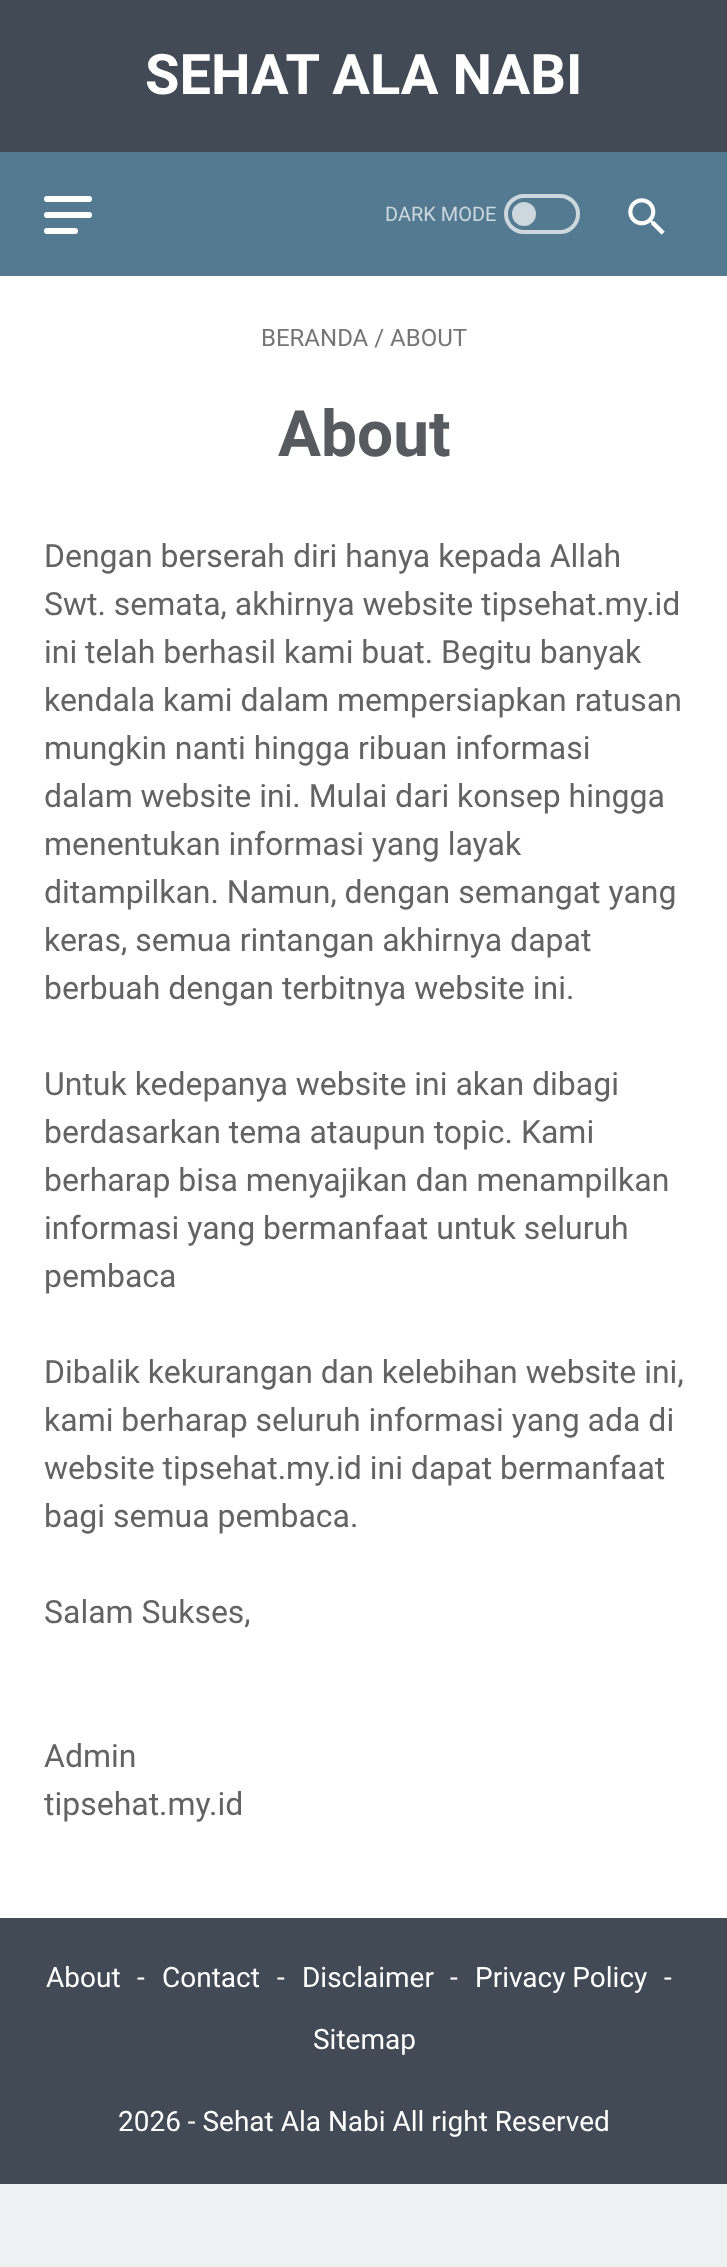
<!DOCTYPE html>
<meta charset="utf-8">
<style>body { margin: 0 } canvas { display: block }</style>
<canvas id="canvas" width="727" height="2267"></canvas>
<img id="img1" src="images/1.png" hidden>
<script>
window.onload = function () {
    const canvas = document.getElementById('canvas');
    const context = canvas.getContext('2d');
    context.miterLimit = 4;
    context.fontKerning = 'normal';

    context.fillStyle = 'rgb(237, 241, 242)';
    context.fillRect(0, 0, 727, 2267);
    context.fillStyle = 'rgb(66, 74, 86)';
    context.fillRect(0, 0, 727, 152);
    context.fillStyle = 'rgb(84, 122, 146)';
    context.fillRect(0, 152, 727, 124);
    context.fillStyle = 'rgb(255, 255, 255)';
    context.beginPath();
    context.roundRect(44, 196, 48, 6, 3);
    context.fill();
    context.beginPath();
    context.roundRect(44, 212, 48, 6, 3);
    context.fill();
    context.beginPath();
    context.roundRect(44, 228, 34, 6, 3);
    context.fill();
    context.beginPath();
    context.roundRect(506, 196, 72, 36, 18);
    context.strokeStyle = 'rgb(204, 215, 222)';
    context.lineWidth = 4;
    context.stroke();
    context.fillStyle = 'rgb(204, 215, 222)';
    context.beginPath();
    context.arc(524, 214, 12, 0, 2 * Math.PI);
    context.fill();
    context.drawImage(document.getElementById('img1'), 628, 198, 37, 37);
    context.fillStyle = 'rgb(255, 255, 255)';
    context.fillRect(0, 276, 727, 1642);
    context.fillStyle = 'rgb(66, 74, 86)';
    context.fillRect(0, 1918, 727, 266);
    context.font = 'bold 56px Roboto';
    context.fillStyle = 'rgb(255, 255, 255)';
    context.fillText('SEHAT ALA NABI', 145, 94);
    context.font = '20px Roboto';
    context.fillStyle = 'rgb(204, 215, 222)';
    context.fillText('DARK MODE', 385, 221);
    context.font = '24px Roboto';
    context.fillStyle = 'rgb(117, 117, 117)';
    context.fillText('BERANDA / ABOUT', 261, 346);
    context.font = 'bold 64px Roboto';
    context.fillStyle = 'rgb(87, 90, 95)';
    context.fillText('About', 278, 456);
    context.font = '32px Roboto';
    context.fillStyle = 'rgb(99, 99, 99)';
    context.fillText('Dengan berserah diri hanya kepada Allah', 44, 567);
    context.fillText('Swt. semata, akhirnya website tipsehat.my.id', 44, 615);
    context.fillText('ini telah berhasil kami buat. Begitu banyak', 44, 663);
    context.fillText('kendala kami dalam mempersiapkan ratusan', 44, 711);
    context.fillText('mungkin nanti hingga ribuan informasi', 44, 759);
    context.fillText('dalam website ini. Mulai dari konsep hingga', 44, 807);
    context.fillText('menentukan informasi yang layak', 44, 855);
    context.fillText('ditampilkan. Namun, dengan semangat yang', 44, 903);
    context.fillText('keras, semua rintangan akhirnya dapat', 44, 951);
    context.fillText('berbuah dengan terbitnya website ini.', 44, 999);
    context.fillText('Untuk kedepanya website ini akan dibagi', 44, 1095);
    context.fillText('berdasarkan tema ataupun topic. Kami', 44, 1143);
    context.fillText('berharap bisa menyajikan dan menampilkan', 44, 1191);
    context.fillText('informasi yang bermanfaat untuk seluruh', 44, 1239);
    context.fillText('pembaca', 44, 1287);
    context.fillText('Dibalik kekurangan dan kelebihan website ini,', 44, 1383);
    context.fillText('kami berharap seluruh informasi yang ada di', 44, 1431);
    context.fillText('website tipsehat.my.id ini dapat bermanfaat', 44, 1479);
    context.fillText('bagi semua pembaca.', 44, 1527);
    context.fillText('Salam Sukses,', 44, 1623);
    context.fillText('Admin', 44, 1767);
    context.fillText('tipsehat.my.id', 44, 1815);
    context.font = '28px Roboto';
    context.fillStyle = 'rgb(255, 255, 255)';
    context.fillText('About', 46, 1987);
    context.fillText('-', 137, 1987);
    context.fillText('Contact', 162, 1987);
    context.fillText('-', 277, 1987);
    context.fillText('Disclaimer', 302, 1987);
    context.fillText('-', 450, 1987);
    context.fillText('Privacy Policy', 475, 1987);
    context.fillText('-', 664, 1987);
    context.fillText('Sitemap', 313, 2049);
    context.fillText('2026 - Sehat Ala Nabi All right Reserved', 118, 2131);
};
</script>
